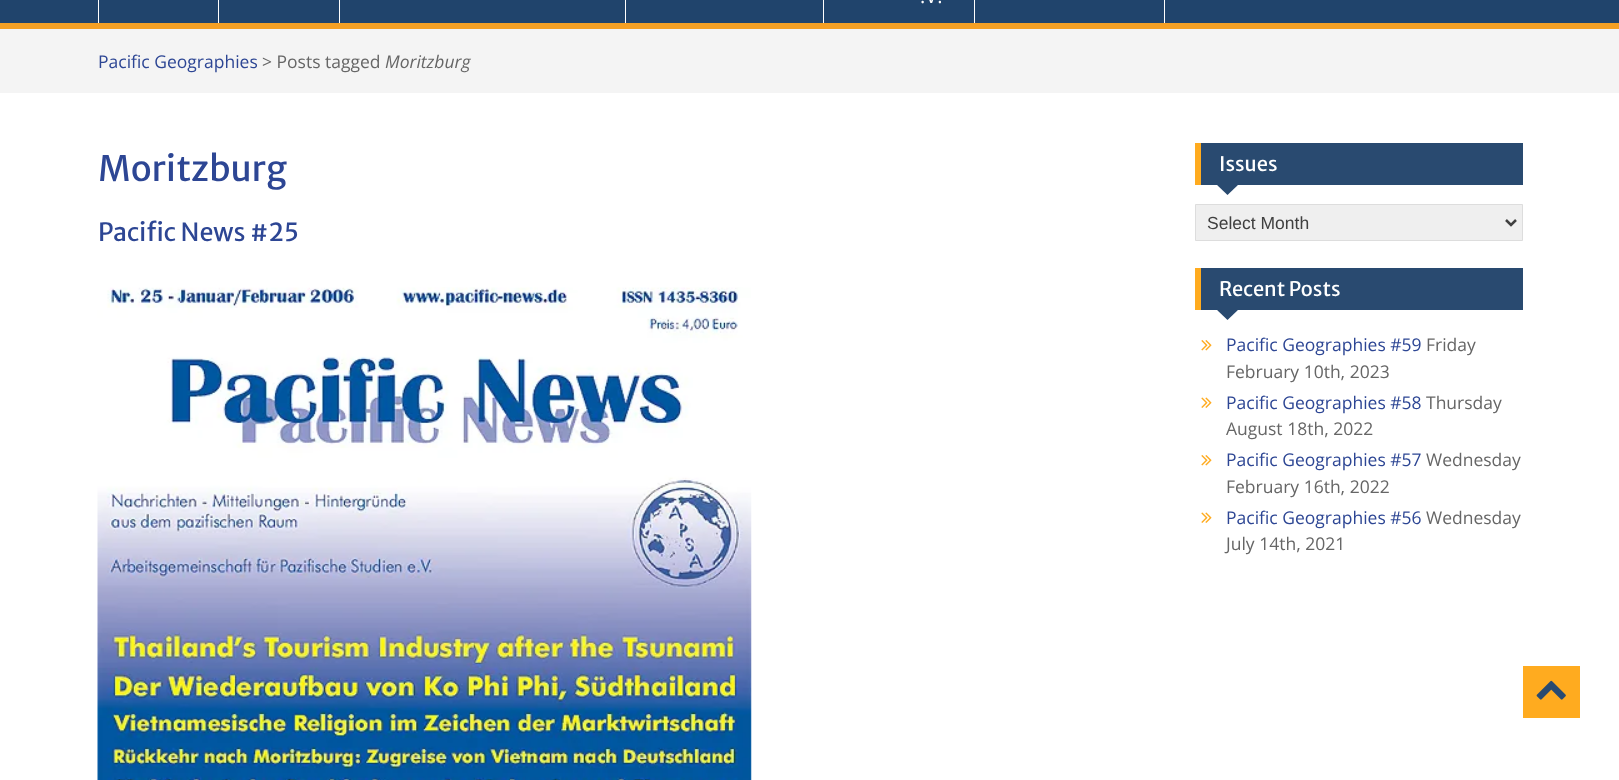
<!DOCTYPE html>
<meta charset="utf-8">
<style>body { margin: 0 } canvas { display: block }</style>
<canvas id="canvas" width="1619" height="780"></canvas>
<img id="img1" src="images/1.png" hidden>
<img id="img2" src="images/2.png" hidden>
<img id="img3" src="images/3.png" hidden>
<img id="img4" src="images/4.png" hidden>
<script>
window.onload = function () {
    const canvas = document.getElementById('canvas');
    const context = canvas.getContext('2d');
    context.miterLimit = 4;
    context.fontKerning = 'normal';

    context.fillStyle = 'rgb(255, 255, 255)';
    context.fillRect(0, 0, 1619, 780);
    context.fillStyle = 'rgb(32, 68, 108)';
    context.fillRect(0, 0, 1619, 23);
    context.fillStyle = 'rgb(244, 160, 36)';
    context.fillRect(0, 23, 1619, 6);
    context.fillStyle = 'rgb(255, 255, 255)';
    context.fillRect(218, 0, 1, 23);
    context.fillRect(98, 0, 1, 23);
    context.fillRect(339, 0, 1, 23);
    context.fillRect(625, 0, 1, 23);
    context.fillRect(823, 0, 1, 23);
    context.fillRect(974, 0, 1, 23);
    context.fillRect(1164, 0, 1, 23);
    context.fillStyle = 'rgb(244, 244, 244)';
    context.fillRect(0, 29, 1619, 64);
    context.drawImage(document.getElementById('img1'), 97, 287, 655, 493);
    context.fillStyle = 'rgb(41, 74, 112)';
    context.fillRect(1201, 143, 322, 42);
    context.fillStyle = 'rgb(255, 171, 31)';
    context.fillRect(1195, 143, 6, 42);
    context.fillStyle = 'rgb(41, 74, 112)';
    context.beginPath();
    context.moveTo(1216, 184);
    context.lineTo(1239, 184);
    context.lineTo(1227.5, 195);
    context.closePath();
    context.fill();
    context.fillStyle = 'rgb(239, 239, 239)';
    context.beginPath();
    context.rect(1195.5, 204.5, 327, 36);
    context.fill();
    context.strokeStyle = 'rgb(221, 221, 221)';
    context.stroke();
    context.beginPath();
    context.moveTo(1506, 220);
    context.lineTo(1511, 225);
    context.lineTo(1516, 220);
    context.strokeStyle = 'rgb(64, 64, 64)';
    context.lineWidth = 2.5;
    context.stroke();
    context.fillStyle = 'rgb(41, 74, 112)';
    context.fillRect(1201, 268, 322, 42);
    context.fillStyle = 'rgb(255, 171, 31)';
    context.fillRect(1195, 268, 6, 42);
    context.fillStyle = 'rgb(41, 74, 112)';
    context.beginPath();
    context.moveTo(1216, 309);
    context.lineTo(1239, 309);
    context.lineTo(1227.5, 320);
    context.closePath();
    context.fill();
    context.drawImage(document.getElementById('img2'), 1201, 340, 11, 11);
    context.drawImage(document.getElementById('img3'), 1201, 397, 11, 11);
    context.drawImage(document.getElementById('img2'), 1201, 455, 11, 11);
    context.drawImage(document.getElementById('img3'), 1201, 512, 11, 11);
    context.fillStyle = 'rgb(255, 171, 31)';
    context.fillRect(1523, 666, 57, 52);
    context.drawImage(document.getElementById('img4'), 1536, 680, 30, 20);
    context.font = '20px Open Sans';
    context.fillStyle = 'rgb(255, 255, 255)';
    context.fillText('.V.', 920, 3);
    context.font = '17.5px Open Sans';
    context.fillStyle = 'rgb(45, 70, 148)';
    context.fillText('Pacific Geographies', 98, 68);
    context.fillStyle = 'rgb(102, 102, 102)';
    context.fillText('> Posts tagged', 262, 68);
    context.font = 'italic 17.5px Open Sans';
    context.fillText('Moritzburg', 385, 68);
    context.font = '35px Merriweather Sans';
    context.fillStyle = 'rgb(45, 70, 148)';
    context.fillText('Moritzburg', 98, 181);
    context.font = '25px Merriweather Sans';
    context.fillText('Pacific News #25', 98, 241);
    context.font = '20px Merriweather Sans';
    context.fillStyle = 'rgb(255, 255, 255)';
    context.fillText('Issues', 1219, 171);
    context.font = '17.5px Liberation Sans';
    context.fillStyle = 'rgb(64, 64, 64)';
    context.fillText('Select Month', 1207, 229);
    context.font = '20px Merriweather Sans';
    context.fillStyle = 'rgb(255, 255, 255)';
    context.fillText('Recent Posts', 1219, 296);
    context.font = '17.5px Open Sans';
    context.fillStyle = 'rgb(45, 70, 148)';
    context.fillText('Pacific Geographies #59', 1226, 351);
    context.fillStyle = 'rgb(102, 102, 102)';
    context.fillText('Friday', 1426, 351);
    context.fillText('February 10th, 2023', 1226, 378);
    context.fillStyle = 'rgb(45, 70, 148)';
    context.fillText('Pacific Geographies #58', 1226, 409);
    context.fillStyle = 'rgb(102, 102, 102)';
    context.fillText('Thursday', 1426, 409);
    context.fillText('August 18th, 2022', 1226, 435);
    context.fillStyle = 'rgb(45, 70, 148)';
    context.fillText('Pacific Geographies #57', 1226, 466);
    context.fillStyle = 'rgb(102, 102, 102)';
    context.fillText('Wednesday', 1426, 466);
    context.fillText('February 16th, 2022', 1226, 493);
    context.fillStyle = 'rgb(45, 70, 148)';
    context.fillText('Pacific Geographies #56', 1226, 524);
    context.fillStyle = 'rgb(102, 102, 102)';
    context.fillText('Wednesday', 1426, 524);
    context.fillText('July 14th, 2021', 1226, 550);
};
</script>
